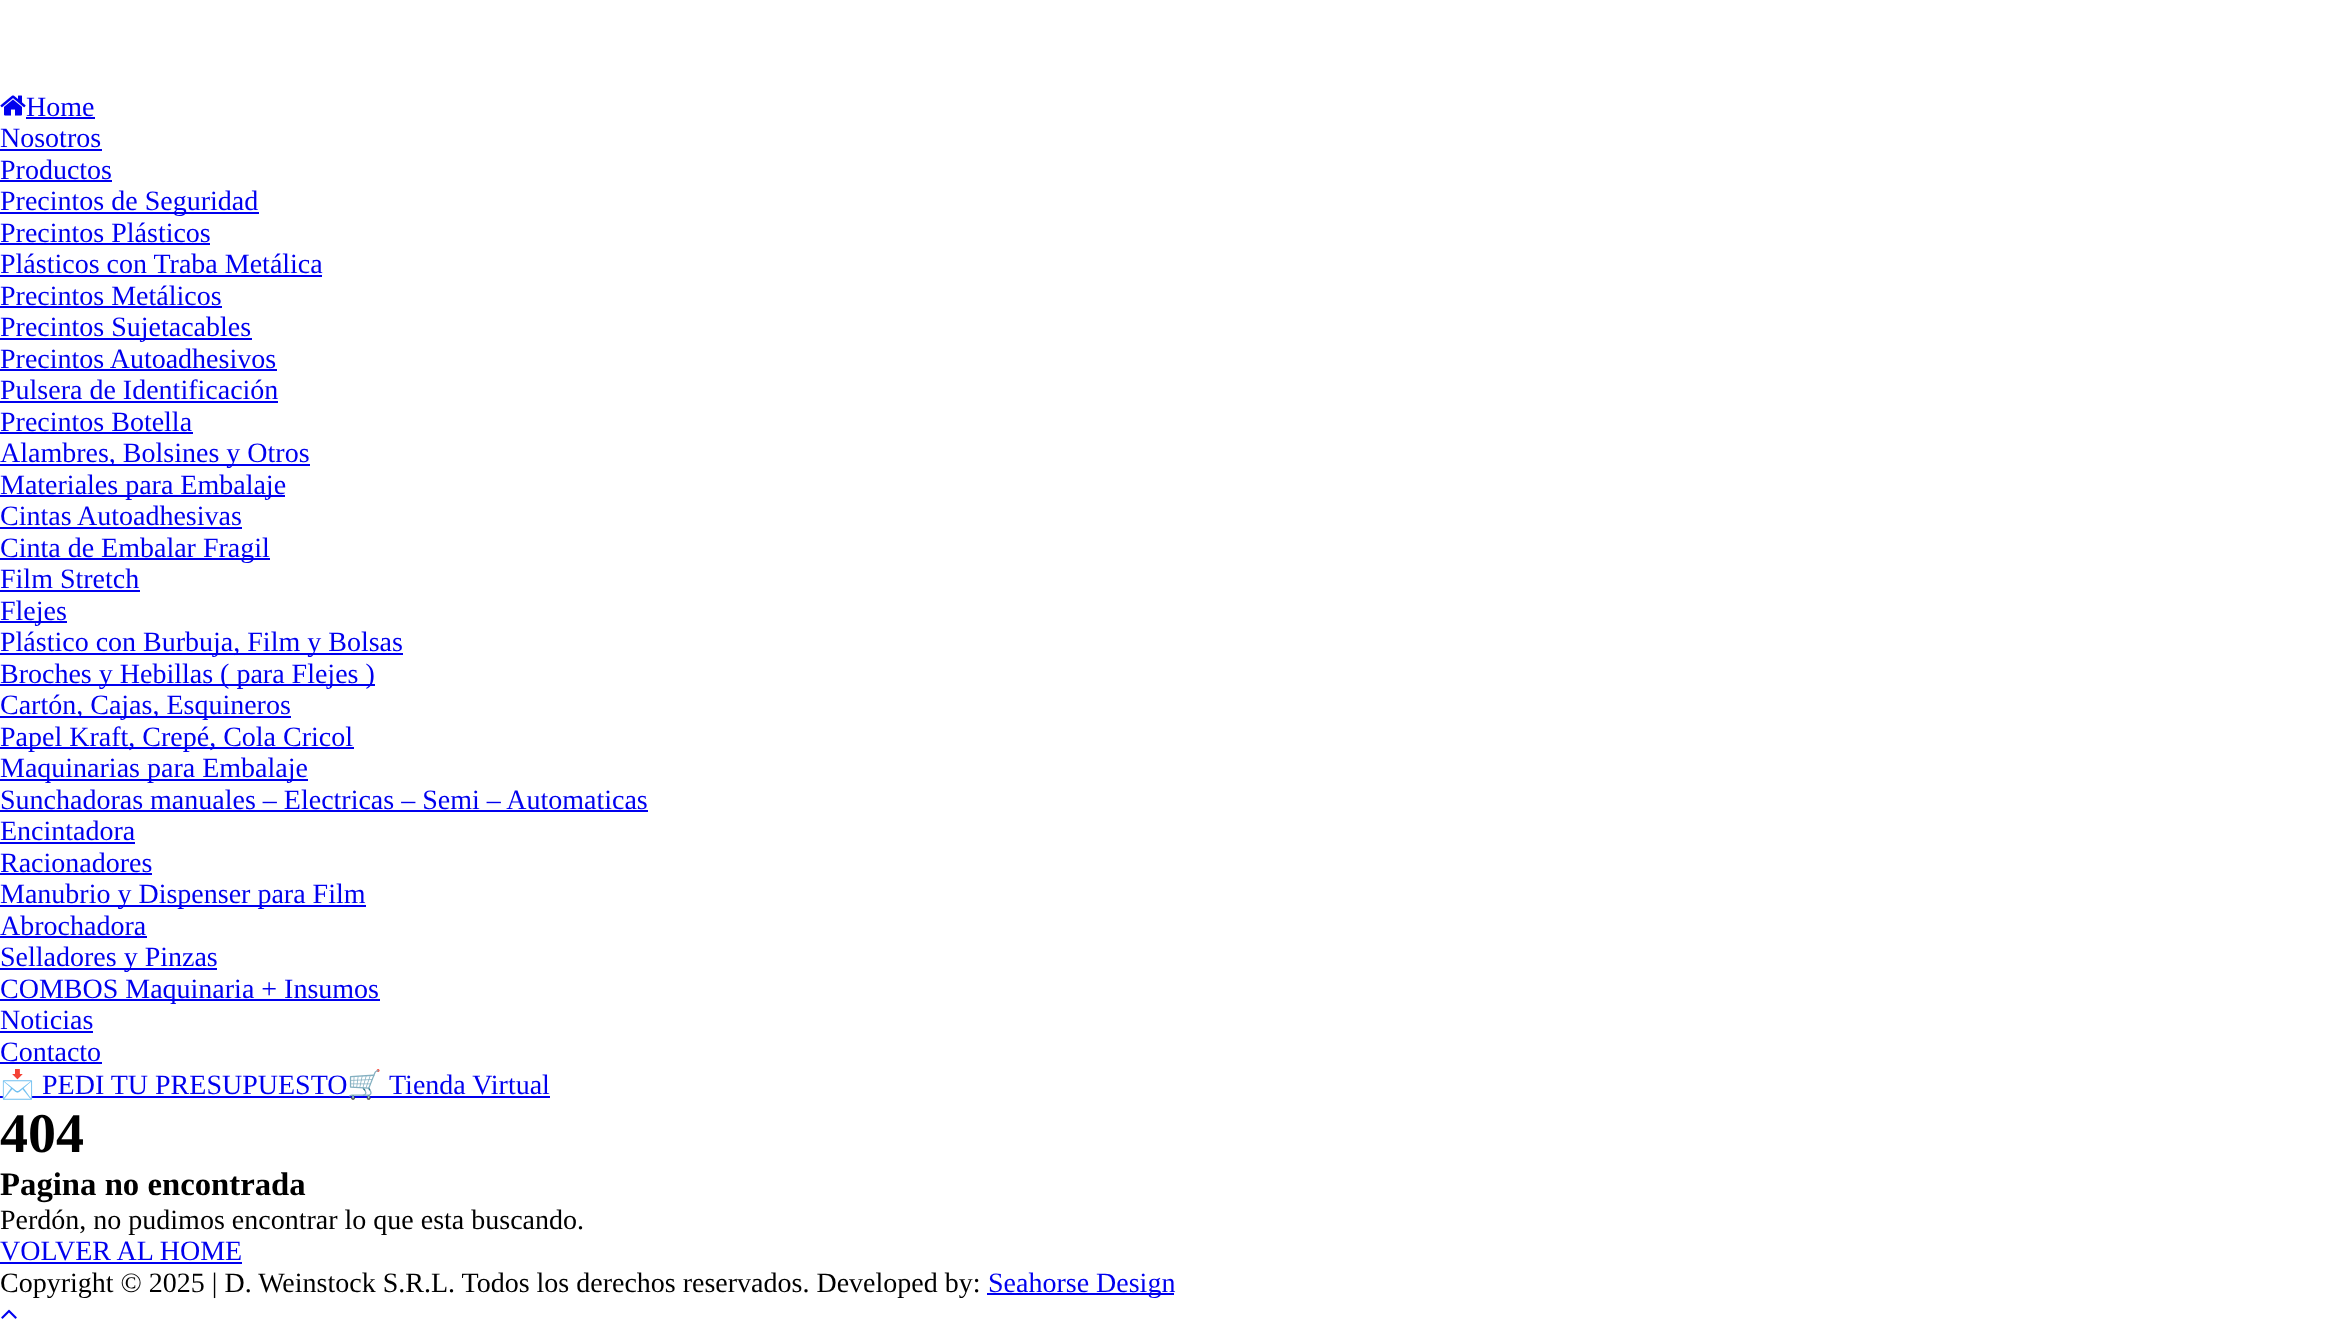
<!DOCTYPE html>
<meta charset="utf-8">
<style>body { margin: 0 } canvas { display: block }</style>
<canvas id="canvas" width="2338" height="1330"></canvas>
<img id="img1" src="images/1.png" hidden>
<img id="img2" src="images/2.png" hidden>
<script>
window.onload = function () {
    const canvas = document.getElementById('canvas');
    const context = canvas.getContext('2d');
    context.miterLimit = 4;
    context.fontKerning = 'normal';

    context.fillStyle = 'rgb(255, 255, 255)';
    context.fillRect(0, 0, 2338, 1330);
    context.drawImage(document.getElementById('img1'), 0, 95, 26, 21);
    context.fillStyle = 'rgb(0, 0, 238)';
    context.fillRect(26, 117, 69, 2);
    context.fillRect(0, 149, 102, 2);
    context.fillRect(0, 180, 112, 2);
    context.fillRect(0, 212, 259, 2);
    context.fillRect(0, 243, 210, 2);
    context.fillRect(0, 275, 322, 2);
    context.fillRect(0, 306, 222, 2);
    context.fillRect(0, 338, 252, 2);
    context.fillRect(0, 369, 277, 2);
    context.fillRect(0, 401, 278, 2);
    context.fillRect(0, 432, 193, 2);
    context.fillRect(0, 464, 310, 2);
    context.fillRect(0, 495, 285, 2);
    context.fillRect(0, 527, 242, 2);
    context.fillRect(0, 558, 270, 2);
    context.fillRect(0, 590, 140, 2);
    context.fillRect(0, 621, 67, 2);
    context.fillRect(0, 653, 403, 2);
    context.fillRect(0, 684, 375, 2);
    context.fillRect(0, 716, 291, 2);
    context.fillRect(0, 747, 354, 2);
    context.fillRect(0, 779, 308, 2);
    context.fillRect(0, 810, 648, 2);
    context.fillRect(0, 842, 135, 2);
    context.fillRect(0, 873, 152, 2);
    context.fillRect(0, 905, 366, 2);
    context.fillRect(0, 936, 147, 2);
    context.fillRect(0, 968, 217, 2);
    context.fillRect(0, 999, 380, 2);
    context.fillRect(0, 1031, 93, 2);
    context.fillRect(0, 1062, 102, 2);
    context.fillRect(0, 1096, 550, 2);
    context.fillRect(0, 1262, 242, 2);
    context.fillRect(987, 1293, 187, 2);
    context.drawImage(document.getElementById('img2'), 1, 1309, 16, 10);
    context.font = '28px Liberation Serif';
    context.fillText('Home', 26, 116);
    context.fillText('Nosotros', 0, 147);
    context.fillText('Productos', 0, 179);
    context.fillText('Precintos de Seguridad', 0, 210);
    context.fillText('Precintos Plásticos', 0, 242);
    context.fillText('Plásticos con Traba Metálica', 0, 273);
    context.fillText('Precintos Metálicos', 0, 305);
    context.fillText('Precintos Sujetacables', 0, 336);
    context.fillText('Precintos Autoadhesivos', 0, 368);
    context.fillText('Pulsera de Identificación', 0, 399);
    context.fillText('Precintos Botella', 0, 431);
    context.fillText('Alambres, Bolsines y Otros', 0, 462);
    context.fillText('Materiales para Embalaje', 0, 494);
    context.fillText('Cintas Autoadhesivas', 0, 525);
    context.fillText('Cinta de Embalar Fragil', 0, 557);
    context.fillText('Film Stretch', 0, 588);
    context.fillText('Flejes', 0, 620);
    context.fillText('Plástico con Burbuja, Film y Bolsas', 0, 651);
    context.fillText('Broches y Hebillas ( para Flejes )', 0, 683);
    context.fillText('Cartón, Cajas, Esquineros', 0, 714);
    context.fillText('Papel Kraft, Crepé, Cola Cricol', 0, 746);
    context.fillText('Maquinarias para Embalaje', 0, 777);
    context.fillText('Sunchadoras manuales – Electricas – Semi – Automaticas', 0, 809);
    context.fillText('Encintadora', 0, 840);
    context.fillText('Racionadores', 0, 872);
    context.fillText('Manubrio y Dispenser para Film', 0, 903);
    context.fillText('Abrochadora', 0, 935);
    context.fillText('Selladores y Pinzas', 0, 966);
    context.fillText('COMBOS Maquinaria + Insumos', 0, 998);
    context.fillText('Noticias', 0, 1029);
    context.fillText('Contacto', 0, 1061);
    context.font = '28px Noto Color Emoji';
    context.fillText('📩', 0, 1094);
    context.font = '28px Liberation Serif';
    context.fillText('PEDI TU PRESUPUESTO', 42, 1094);
    context.font = '28px Noto Color Emoji';
    context.fillText('🛒', 347, 1094);
    context.font = '28px Liberation Serif';
    context.fillText('Tienda Virtual', 389, 1094);
    context.font = 'bold 56px Liberation Serif';
    context.fillStyle = 'rgb(0, 0, 0)';
    context.fillText('404', 0, 1152);
    context.font = 'bold 32.75px Liberation Serif';
    context.fillText('Pagina no encontrada', 0, 1195);
    context.font = '28px Liberation Serif';
    context.fillText('Perdón, no pudimos encontrar lo que esta buscando.', 0, 1229);
    context.fillStyle = 'rgb(0, 0, 238)';
    context.fillText('VOLVER AL HOME', 0, 1260);
    context.fillStyle = 'rgb(0, 0, 0)';
    context.fillText('Copyright © 2025 | D. Weinstock S.R.L. Todos los derechos reservados. Developed by:', 0, 1292);
    context.fillStyle = 'rgb(0, 0, 238)';
    context.fillText('Seahorse Design', 988, 1292);
};
</script>
